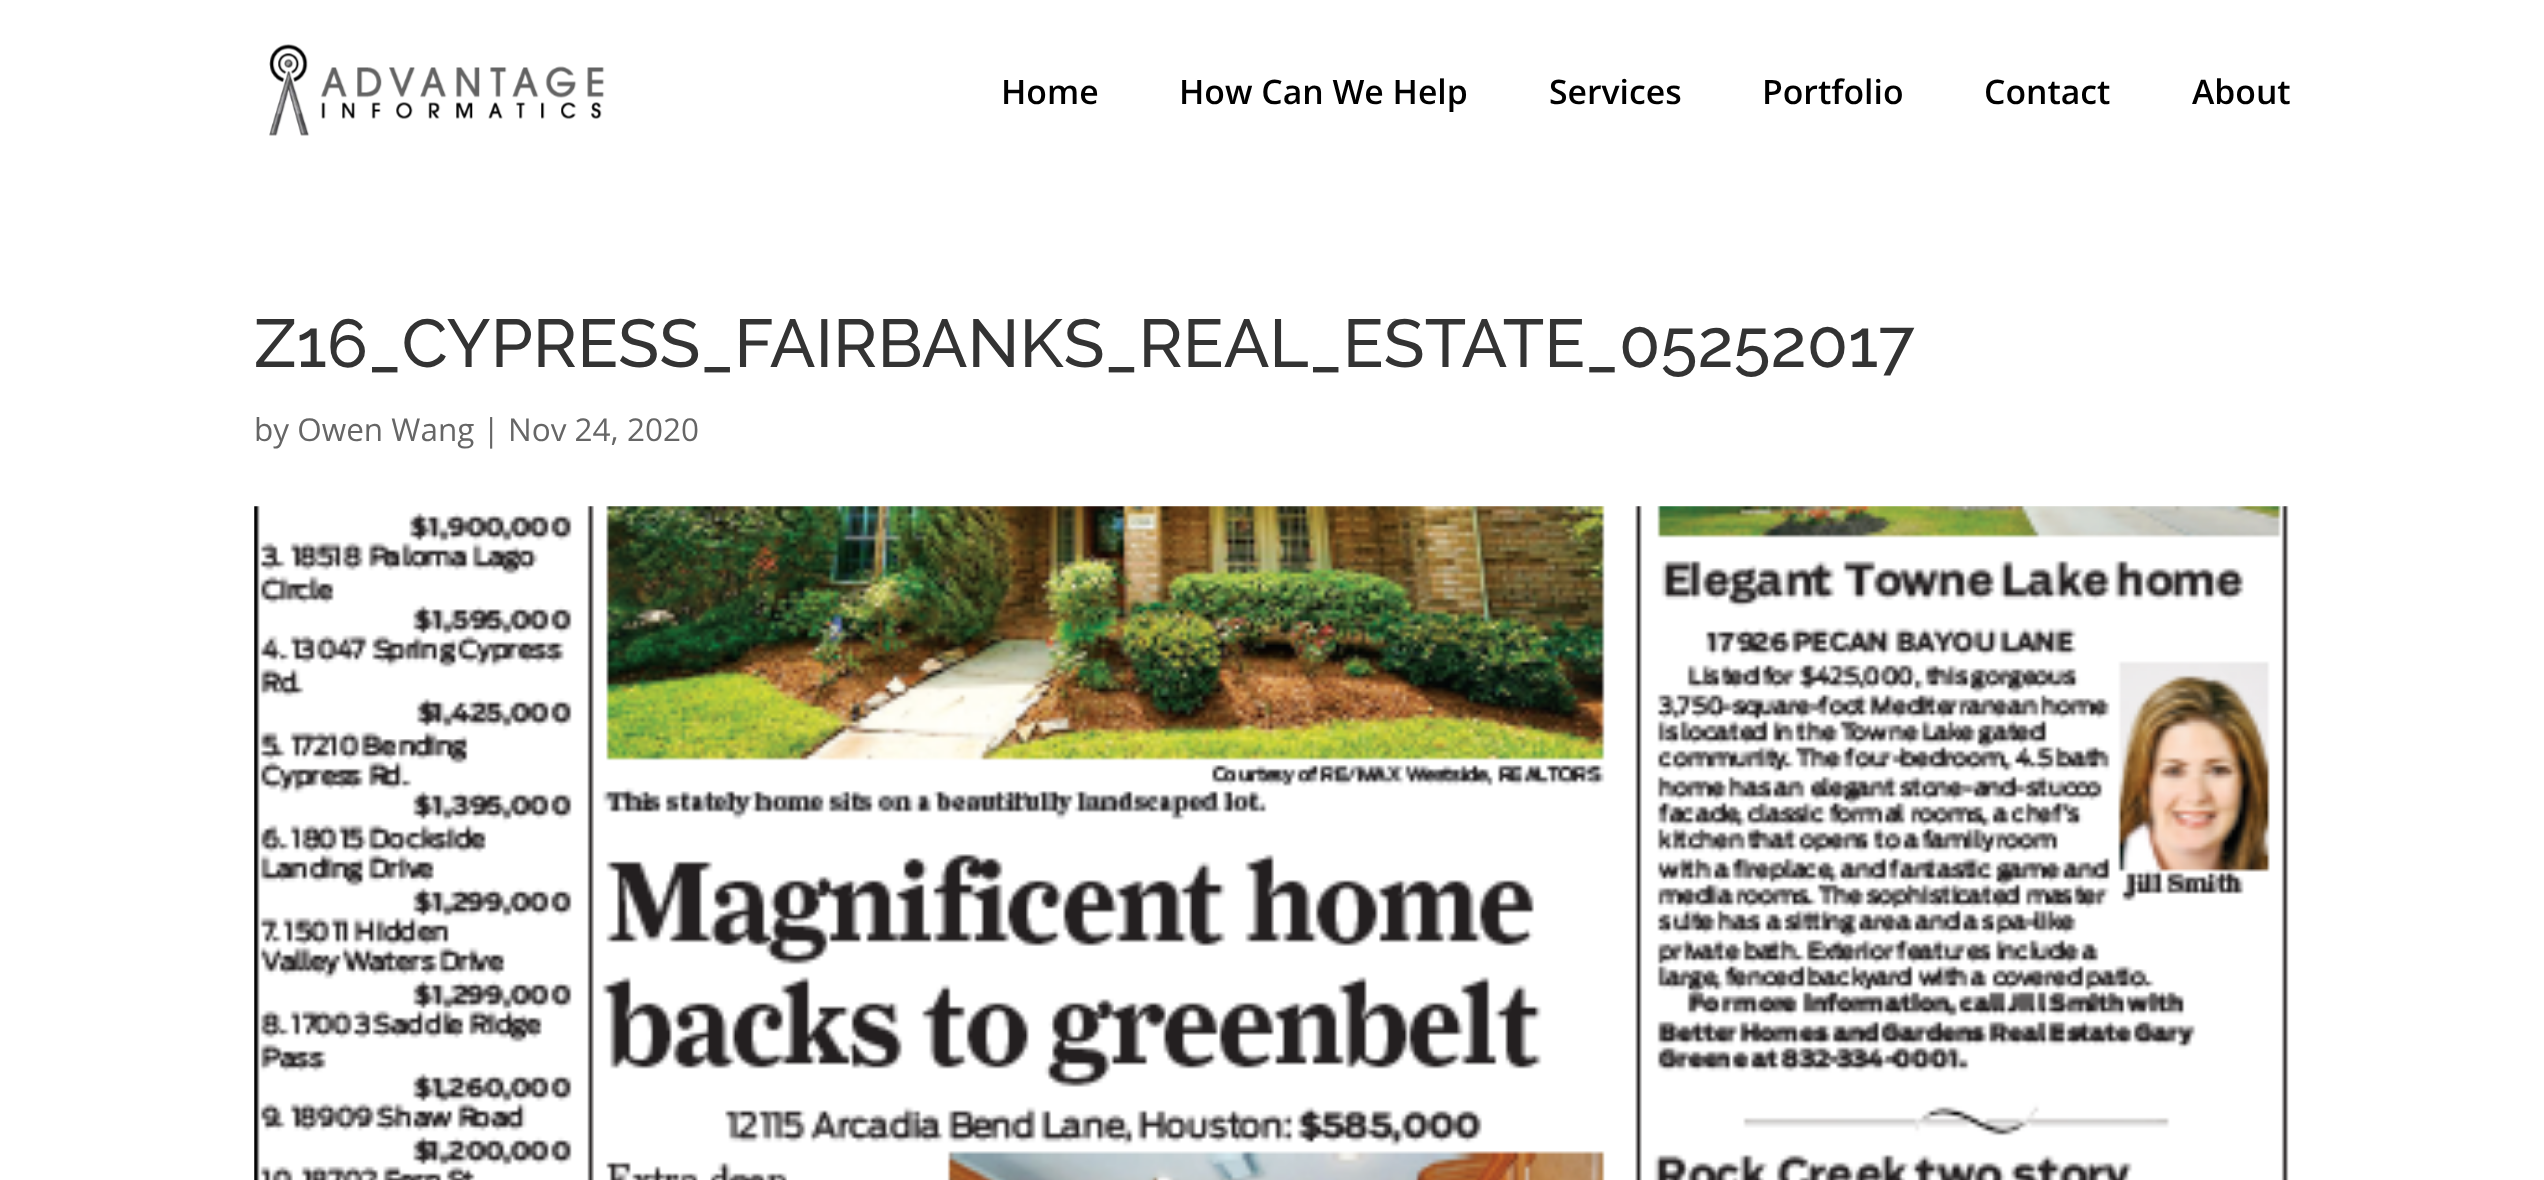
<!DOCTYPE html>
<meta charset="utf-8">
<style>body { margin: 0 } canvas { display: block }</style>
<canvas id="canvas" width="2544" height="1180"></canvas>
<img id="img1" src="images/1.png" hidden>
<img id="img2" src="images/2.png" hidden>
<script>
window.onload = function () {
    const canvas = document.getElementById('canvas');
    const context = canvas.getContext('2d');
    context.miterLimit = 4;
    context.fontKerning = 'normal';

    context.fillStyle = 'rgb(255, 255, 255)';
    context.fillRect(0, 0, 2544, 1180);
    context.drawImage(document.getElementById('img1'), 269, 44, 336, 92);
    context.drawImage(document.getElementById('img2'), 254, 506, 2035, 674);
    context.font = '600 33.75px Open Sans';
    context.fillStyle = 'rgb(0, 0, 0)';
    context.fillText('Home', 1001, 104);
    context.fillText('How Can We Help', 1179, 104);
    context.fillText('Services', 1549, 104);
    context.fillText('Portfolio', 1762, 104);
    context.fillText('Contact', 1984, 104);
    context.fillText('About', 2192, 104);
    context.font = '500 67.5px Raleway';
    context.fillStyle = 'rgb(51, 51, 51)';
    context.fillText('Z16_CYPRESS_FAIRBANKS_REAL_ESTATE_05252017', 254, 367);
    context.font = '31.5px Open Sans';
    context.fillStyle = 'rgb(102, 102, 102)';
    context.fillText('by Owen Wang | Nov 24, 2020', 254, 441);
};
</script>
